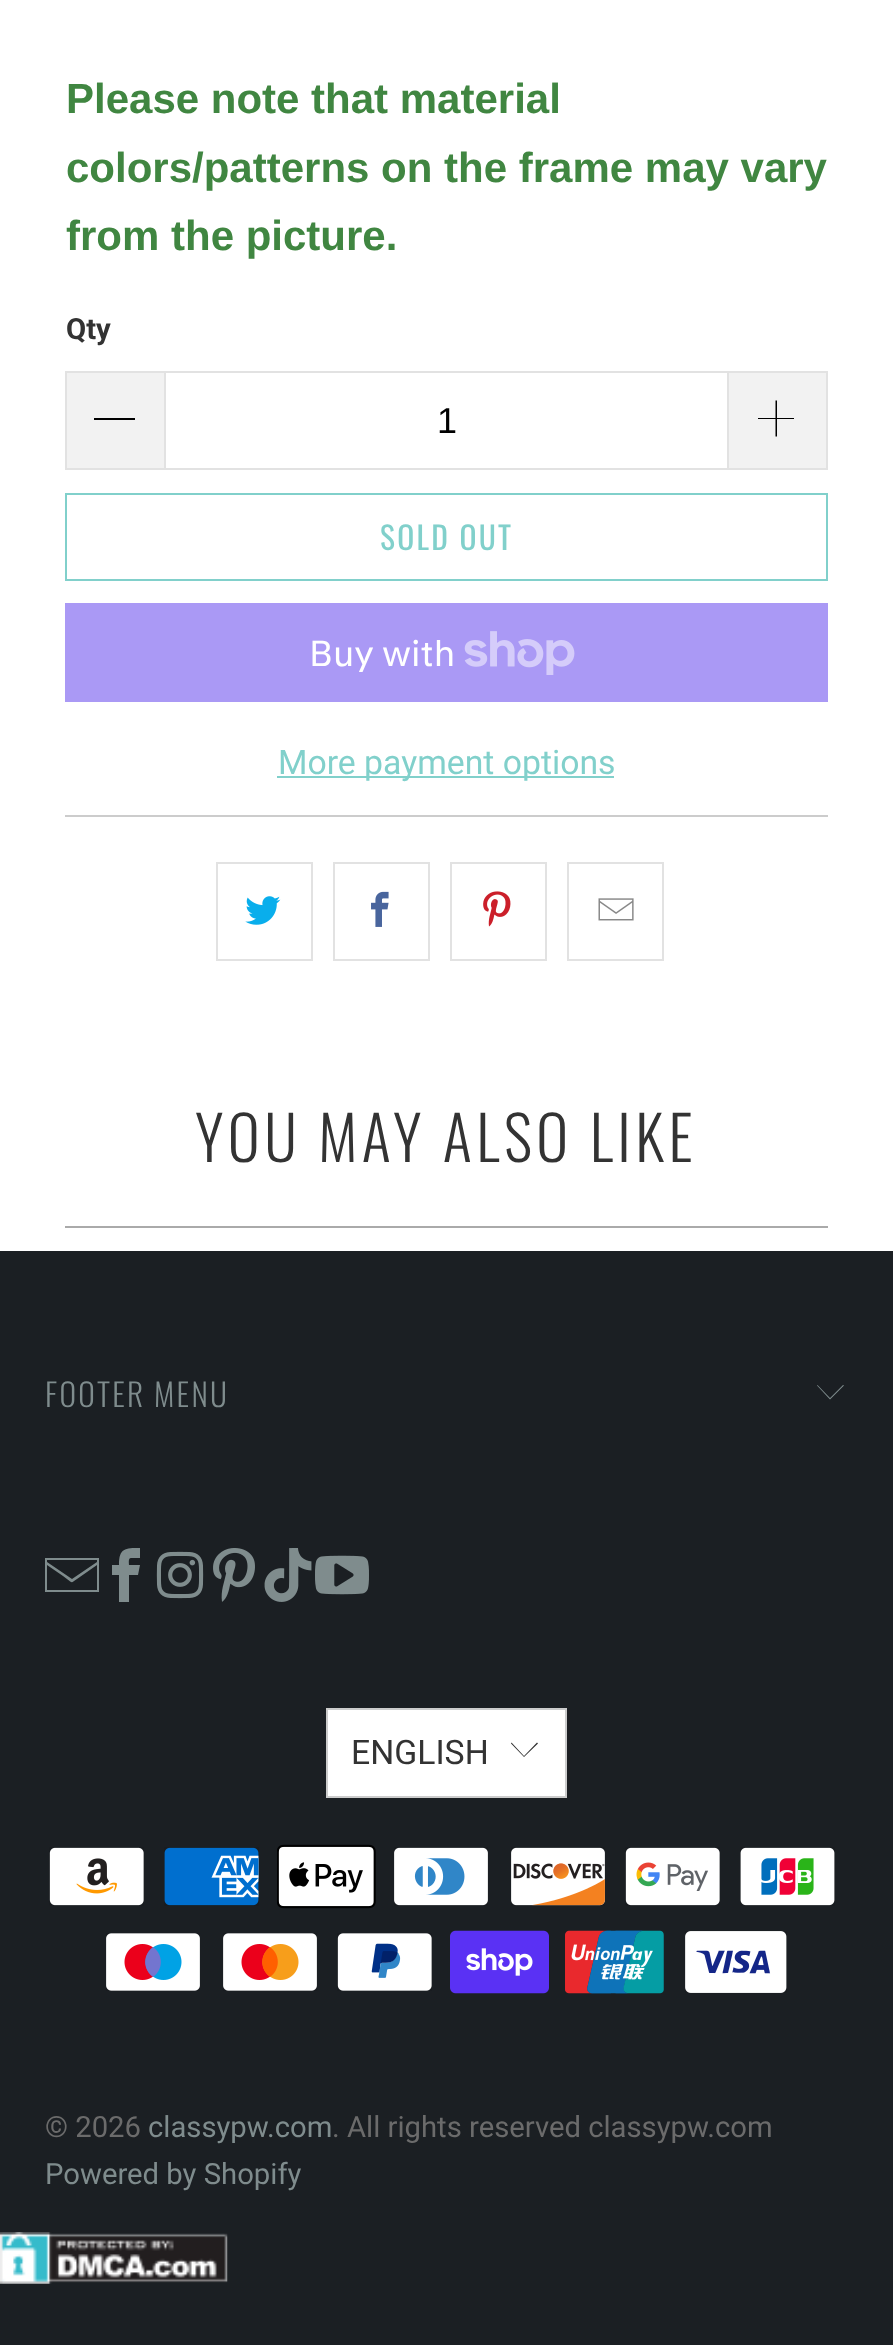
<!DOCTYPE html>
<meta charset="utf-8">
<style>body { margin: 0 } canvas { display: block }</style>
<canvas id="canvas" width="893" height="2345"></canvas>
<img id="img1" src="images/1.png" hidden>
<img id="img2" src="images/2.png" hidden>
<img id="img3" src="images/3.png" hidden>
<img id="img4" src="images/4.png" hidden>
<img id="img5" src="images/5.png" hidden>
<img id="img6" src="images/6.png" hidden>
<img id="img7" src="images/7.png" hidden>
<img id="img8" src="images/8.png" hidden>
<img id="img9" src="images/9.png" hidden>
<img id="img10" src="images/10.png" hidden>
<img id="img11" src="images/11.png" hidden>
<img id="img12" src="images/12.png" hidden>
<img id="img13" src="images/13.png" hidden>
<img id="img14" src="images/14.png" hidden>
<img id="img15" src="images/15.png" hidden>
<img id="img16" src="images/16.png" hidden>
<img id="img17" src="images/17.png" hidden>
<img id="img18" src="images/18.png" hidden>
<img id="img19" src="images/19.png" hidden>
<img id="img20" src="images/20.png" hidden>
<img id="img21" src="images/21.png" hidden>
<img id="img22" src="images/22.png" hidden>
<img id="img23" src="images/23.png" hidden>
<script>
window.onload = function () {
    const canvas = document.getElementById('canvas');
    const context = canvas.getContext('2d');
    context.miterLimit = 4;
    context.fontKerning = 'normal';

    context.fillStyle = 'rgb(255, 255, 255)';
    context.fillRect(0, 0, 893, 2345);
    context.fillStyle = 'rgb(242, 242, 242)';
    context.fillRect(67, 373, 97, 95);
    context.fillStyle = 'rgb(226, 226, 226)';
    context.fillRect(65, 371, 99, 2);
    context.fillRect(65, 468, 99, 2);
    context.fillRect(65, 371, 2, 99);
    context.fillStyle = 'rgb(0, 0, 0)';
    context.fillRect(94, 418, 41, 2);
    context.strokeStyle = 'rgb(226, 226, 226)';
    context.lineWidth = 2;
    context.strokeRect(165, 372, 563, 97);
    context.fillStyle = 'rgb(242, 242, 242)';
    context.fillRect(729, 373, 97, 95);
    context.fillStyle = 'rgb(226, 226, 226)';
    context.fillRect(729, 371, 99, 2);
    context.fillRect(826, 371, 2, 99);
    context.fillRect(729, 468, 99, 2);
    context.fillStyle = 'rgb(0, 0, 0)';
    context.beginPath();
    context.moveTo(794, 418);
    context.lineTo(777, 418);
    context.lineTo(777, 400.5);
    context.lineTo(775.5, 400.5);
    context.lineTo(775.5, 418);
    context.lineTo(758, 418);
    context.lineTo(758, 419);
    context.lineTo(775.5, 419);
    context.lineTo(775.5, 436.5);
    context.lineTo(777, 436.5);
    context.lineTo(777, 419);
    context.lineTo(794, 419);
    context.closePath();
    context.fill();
    context.strokeStyle = 'rgb(129, 208, 203)';
    context.strokeRect(66, 494, 761, 86);
    context.fillStyle = 'rgb(170, 153, 245)';
    context.fillRect(65, 603, 763, 99);
    context.drawImage(document.getElementById('img1'), 464, 631, 111, 44);
    context.fillStyle = 'rgb(129, 208, 203)';
    context.fillRect(277, 776, 337, 2);
    context.fillStyle = 'rgb(204, 204, 204)';
    context.fillRect(65, 815, 763, 2);
    context.strokeStyle = 'rgb(226, 226, 226)';
    context.strokeRect(217, 863, 95, 97);
    context.drawImage(document.getElementById('img2'), 245, 896, 36, 29);
    context.strokeRect(334, 863, 95, 97);
    context.drawImage(document.getElementById('img3'), 371, 891, 18, 36);
    context.strokeRect(451, 863, 95, 97);
    context.drawImage(document.getElementById('img4'), 483, 891, 28, 36);
    context.strokeRect(568, 863, 95, 97);
    context.drawImage(document.getElementById('img5'), 598, 898, 36, 23);
    context.fillStyle = 'rgb(170, 170, 170)';
    context.fillRect(65, 1226, 763, 2);
    context.fillStyle = 'rgb(27, 31, 35)';
    context.fillRect(0, 1251, 893, 1094);
    context.fillStyle = 'rgb(127, 140, 141)';
    context.beginPath();
    context.moveTo(830, 1399.5);
    context.lineTo(817, 1385.5);
    context.lineTo(817.5, 1385);
    context.lineTo(830, 1398);
    context.lineTo(843, 1385);
    context.lineTo(844, 1385.5);
    context.closePath();
    context.fill();
    context.beginPath();
    context.moveTo(45, 1558);
    context.lineTo(45, 1592);
    context.lineTo(99, 1592);
    context.lineTo(99, 1558);
    context.closePath();
    context.moveTo(97, 1560);
    context.lineTo(97, 1562);
    context.lineTo(72, 1579);
    context.lineTo(47, 1562);
    context.lineTo(47, 1560);
    context.closePath();
    context.moveTo(47, 1590);
    context.lineTo(47, 1565);
    context.lineTo(63, 1576);
    context.bezierCurveTo(73, 1583, 70, 1584, 77, 1579);
    context.lineTo(97, 1565);
    context.lineTo(97, 1590);
    context.closePath();
    context.fill();
    context.beginPath();
    context.moveTo(131, 1558);
    context.lineTo(140, 1558);
    context.lineTo(140, 1548);
    context.bezierCurveTo(125, 1548, 119, 1548, 119, 1565);
    context.lineTo(112, 1565);
    context.lineTo(112, 1575);
    context.lineTo(119, 1575);
    context.lineTo(119, 1602);
    context.lineTo(129, 1602);
    context.lineTo(129, 1575);
    context.lineTo(138, 1575);
    context.lineTo(140, 1565);
    context.lineTo(129, 1565);
    context.bezierCurveTo(129, 1563, 128, 1558, 131, 1558);
    context.closePath();
    context.fill();
    context.drawImage(document.getElementById('img6'), 156, 1551, 48, 48);
    context.drawImage(document.getElementById('img7'), 213, 1548, 42, 54);
    context.drawImage(document.getElementById('img8'), 264, 1548, 48, 54);
    context.drawImage(document.getElementById('img9'), 315, 1555, 54, 40);
    context.fillStyle = 'rgb(255, 255, 255)';
    context.beginPath();
    context.rect(327, 1709, 239, 88);
    context.fill();
    context.strokeStyle = 'rgb(204, 204, 204)';
    context.stroke();
    context.fillStyle = 'rgb(51, 51, 51)';
    context.beginPath();
    context.moveTo(524, 1757);
    context.lineTo(511, 1743.5);
    context.lineTo(511.5, 1742.5);
    context.lineTo(524, 1756);
    context.lineTo(537, 1742.5);
    context.lineTo(538, 1743.5);
    context.closePath();
    context.fill();
    context.drawImage(document.getElementById('img10'), 49, 1847, 95, 59);
    context.drawImage(document.getElementById('img11'), 164, 1847, 95, 59);
    context.drawImage(document.getElementById('img12'), 277, 1844, 99, 65);
    context.drawImage(document.getElementById('img13'), 394, 1847, 94, 59);
    context.drawImage(document.getElementById('img14'), 511, 1847, 94, 59);
    context.drawImage(document.getElementById('img15'), 625, 1847, 95, 59);
    context.drawImage(document.getElementById('img16'), 740, 1847, 95, 59);
    context.drawImage(document.getElementById('img17'), 106, 1933, 94, 58);
    context.drawImage(document.getElementById('img18'), 223, 1933, 94, 58);
    context.drawImage(document.getElementById('img19'), 337, 1933, 95, 58);
    context.drawImage(document.getElementById('img20'), 450, 1930, 99, 64);
    context.drawImage(document.getElementById('img21'), 565, 1930, 99, 64);
    context.drawImage(document.getElementById('img22'), 685, 1931, 102, 62);
    context.drawImage(document.getElementById('img23'), 0, 2232, 228, 52);
    context.font = 'bold 42px Liberation Sans';
    context.fillStyle = 'rgb(64, 134, 65)';
    context.fillText('Please note that material', 66, 113);
    context.fillText('colors/patterns on the frame may vary', 66, 182);
    context.fillText('from the picture.', 66, 250);
    context.font = 'bold 29.25px Roboto';
    context.fillStyle = 'rgb(51, 51, 51)';
    context.fillText('Qty', 66, 339);
    context.font = '36px Liberation Sans';
    context.fillStyle = 'rgb(0, 0, 0)';
    context.fillText('1', 437, 433);
    context.letterSpacing = '2.25px';
    context.font = '31.5px Oswald';
    context.fillStyle = 'rgb(129, 208, 203)';
    context.fillText('SOLD OUT', 380, 550);
    context.letterSpacing = '0px';
    context.font = '36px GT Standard';
    context.fillStyle = 'rgb(255, 255, 255)';
    context.fillText('Buy with', 309, 666);
    context.font = '33.75px Roboto';
    context.fillStyle = 'rgb(129, 208, 203)';
    context.fillText('More payment options', 278, 774);
    context.letterSpacing = '4.5px';
    context.font = '300 60.75px Oswald';
    context.fillStyle = 'rgb(51, 51, 51)';
    context.fillText('YOU MAY ALSO LIKE', 195, 1162);
    context.letterSpacing = '2.25px';
    context.font = '300 31.5px Oswald';
    context.fillStyle = 'rgb(127, 140, 141)';
    context.fillText('FOOTER MENU', 45, 1407);
    context.letterSpacing = '0px';
    context.font = '33.75px Roboto';
    context.fillStyle = 'rgb(51, 51, 51)';
    context.fillText('ENGLISH', 351, 1764);
    context.font = '29.25px Roboto';
    context.fillStyle = 'rgb(107, 107, 107)';
    context.fillText('© 2026', 45, 2137);
    context.fillStyle = 'rgb(127, 140, 141)';
    context.fillText('classypw.com', 148, 2137);
    context.fillStyle = 'rgb(107, 107, 107)';
    context.fillText('. All rights reserved classypw.com', 332, 2137);
    context.fillStyle = 'rgb(127, 140, 141)';
    context.fillText('Powered by Shopify', 45, 2184);
};
</script>
